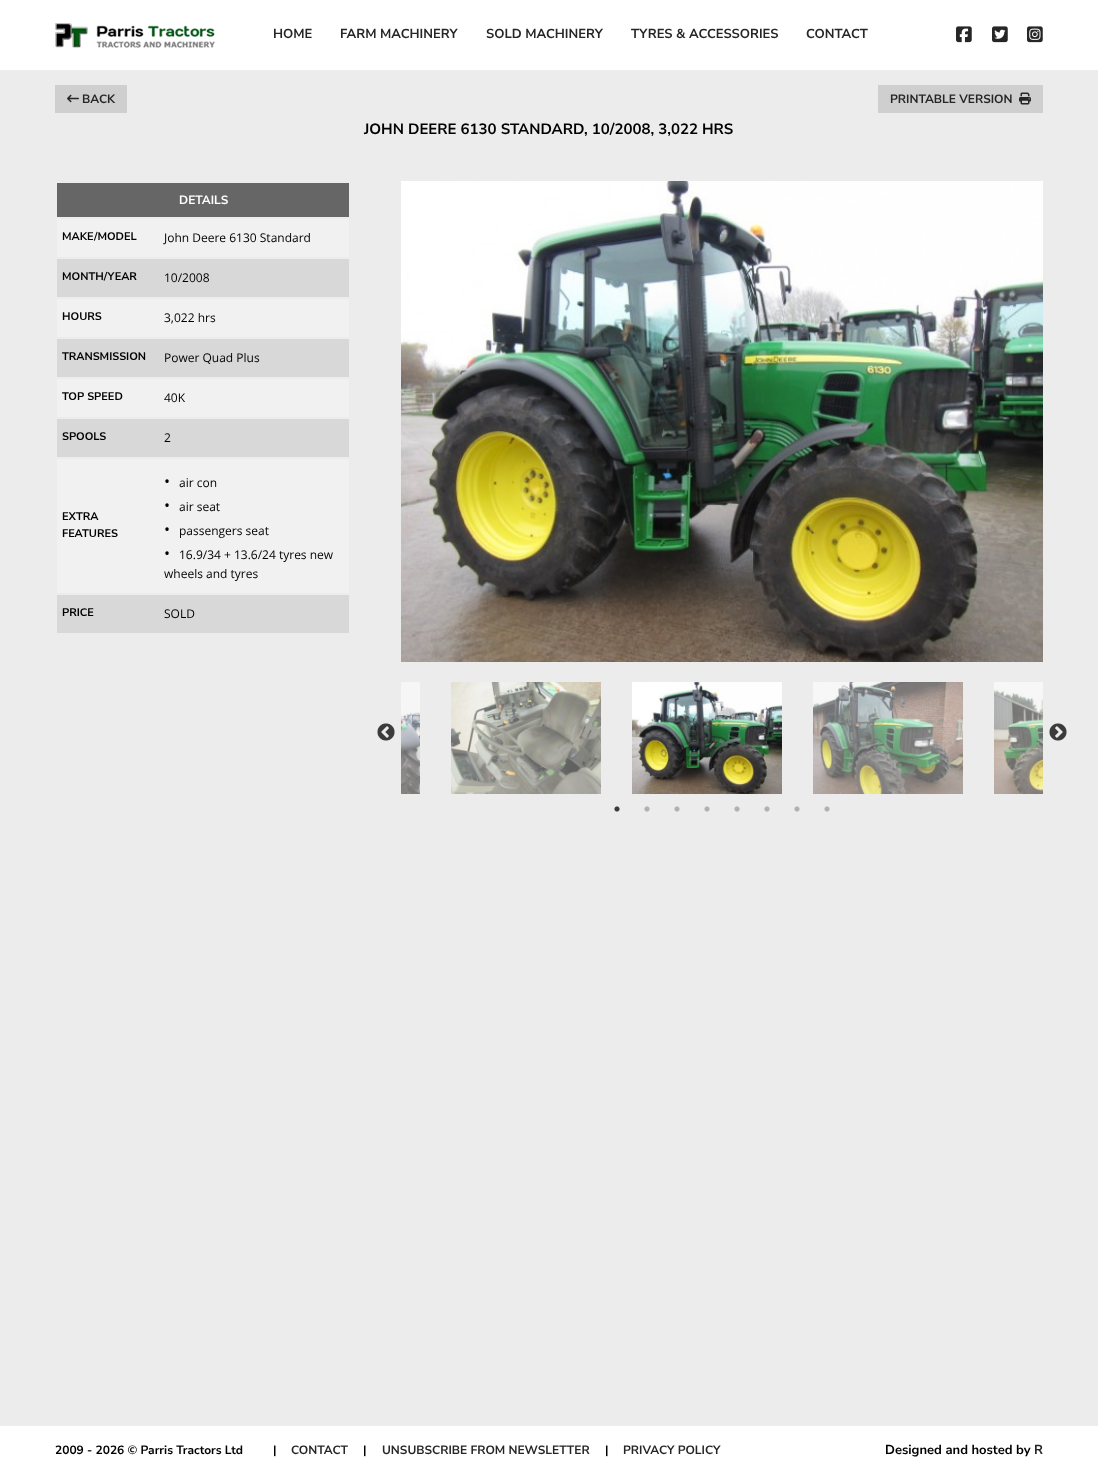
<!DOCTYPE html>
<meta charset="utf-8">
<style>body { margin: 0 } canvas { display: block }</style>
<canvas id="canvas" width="1098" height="1475"></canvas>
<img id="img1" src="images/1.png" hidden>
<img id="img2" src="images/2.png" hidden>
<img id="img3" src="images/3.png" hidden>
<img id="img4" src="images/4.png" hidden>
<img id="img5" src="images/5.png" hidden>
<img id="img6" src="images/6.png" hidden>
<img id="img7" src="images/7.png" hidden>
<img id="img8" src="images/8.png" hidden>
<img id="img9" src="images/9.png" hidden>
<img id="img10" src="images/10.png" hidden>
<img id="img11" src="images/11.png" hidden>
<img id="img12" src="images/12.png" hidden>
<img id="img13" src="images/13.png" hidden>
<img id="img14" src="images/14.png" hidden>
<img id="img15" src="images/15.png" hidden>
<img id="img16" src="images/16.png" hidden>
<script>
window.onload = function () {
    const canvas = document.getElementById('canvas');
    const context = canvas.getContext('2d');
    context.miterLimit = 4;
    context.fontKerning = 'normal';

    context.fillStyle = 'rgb(236, 236, 236)';
    context.fillRect(0, 0, 1098, 1475);
    context.fillStyle = 'rgb(255, 255, 255)';
    context.fillRect(0, 0, 1098, 70);
    context.drawImage(document.getElementById('img1'), 55, 23, 160, 25);
    context.drawImage(document.getElementById('img2'), 956, 26, 16, 17);
    context.drawImage(document.getElementById('img3'), 992, 26, 16, 17);
    context.drawImage(document.getElementById('img4'), 1027, 26, 16, 17);
    context.fillStyle = 'rgb(207, 207, 207)';
    context.fillRect(55, 85, 72, 28);
    context.drawImage(document.getElementById('img5'), 67, 94, 12, 9);
    context.fillRect(878, 85, 165, 28);
    context.drawImage(document.getElementById('img6'), 1019, 92, 12, 13);
    context.fillStyle = 'rgb(102, 102, 102)';
    context.fillRect(57, 183, 292, 34);
    context.fillStyle = 'rgb(241, 241, 241)';
    context.fillRect(57, 219, 292, 38);
    context.fillStyle = 'rgb(216, 216, 216)';
    context.fillRect(57, 259, 292, 38);
    context.fillStyle = 'rgb(241, 241, 241)';
    context.fillRect(57, 299, 292, 38);
    context.fillStyle = 'rgb(216, 216, 216)';
    context.fillRect(57, 339, 292, 38);
    context.fillStyle = 'rgb(241, 241, 241)';
    context.fillRect(57, 379, 292, 38);
    context.fillStyle = 'rgb(216, 216, 216)';
    context.fillRect(57, 419, 292, 38);
    context.fillStyle = 'rgb(241, 241, 241)';
    context.fillRect(57, 459, 292, 134);
    context.fillStyle = 'rgb(216, 216, 216)';
    context.fillRect(57, 595, 292, 38);
    context.drawImage(document.getElementById('img7'), 401, 181, 642, 481);
    context.drawImage(document.getElementById('img8'), 377, 723, 18, 18);
    context.drawImage(document.getElementById('img9'), 401, 682, 19, 112);
    context.drawImage(document.getElementById('img10'), 451, 682, 150, 112);
    context.drawImage(document.getElementById('img11'), 632, 682, 150, 112);
    context.drawImage(document.getElementById('img12'), 813, 682, 150, 112);
    context.drawImage(document.getElementById('img13'), 994, 682, 49, 112);
    context.drawImage(document.getElementById('img14'), 1049, 723, 18, 18);
    context.drawImage(document.getElementById('img15'), 614, 806, 6, 6);
    context.drawImage(document.getElementById('img16'), 644, 806, 6, 6);
    context.drawImage(document.getElementById('img16'), 674, 806, 6, 6);
    context.drawImage(document.getElementById('img16'), 704, 806, 6, 6);
    context.drawImage(document.getElementById('img16'), 734, 806, 6, 6);
    context.drawImage(document.getElementById('img16'), 764, 806, 6, 6);
    context.drawImage(document.getElementById('img16'), 794, 806, 6, 6);
    context.drawImage(document.getElementById('img16'), 824, 806, 6, 6);
    context.fillStyle = 'rgb(255, 255, 255)';
    context.fillRect(0, 1426, 1098, 49);
    context.font = 'bold 13px Nunito Sans';
    context.fillStyle = 'rgb(38, 38, 38)';
    context.fillText('HOME', 273, 38);
    context.fillText('FARM MACHINERY', 340, 38);
    context.fillText('SOLD MACHINERY', 486, 38);
    context.fillText('TYRES & ACCESSORIES', 631, 38);
    context.fillText('CONTACT', 806, 38);
    context.font = 'bold 12px Nunito Sans';
    context.fillText('BACK', 82, 103);
    context.fillText('PRINTABLE VERSION', 890, 103);
    context.font = 'bold 15px Nunito Sans';
    context.fillStyle = 'rgb(0, 0, 0)';
    context.fillText('JOHN DEERE 6130 STANDARD, 10/2008, 3,022 HRS', 364, 134);
    context.font = 'bold 12px Nunito Sans';
    context.fillStyle = 'rgb(255, 255, 255)';
    context.fillText('DETAILS', 179, 204);
    context.font = 'bold 11px Nunito Sans';
    context.fillStyle = 'rgb(0, 0, 0)';
    context.fillText('MAKE/MODEL', 62, 240);
    context.font = '12px Open Sans';
    context.fillText('John Deere 6130 Standard', 164, 242);
    context.font = 'bold 11px Nunito Sans';
    context.fillText('MONTH/YEAR', 62, 280);
    context.font = '12px Open Sans';
    context.fillText('10/2008', 164, 282);
    context.font = 'bold 11px Nunito Sans';
    context.fillText('HOURS', 62, 320);
    context.font = '12px Open Sans';
    context.fillText('3,022 hrs', 164, 322);
    context.font = 'bold 11px Nunito Sans';
    context.fillText('TRANSMISSION', 62, 360);
    context.font = '12px Open Sans';
    context.fillText('Power Quad Plus', 164, 362);
    context.font = 'bold 11px Nunito Sans';
    context.fillText('TOP SPEED', 62, 400);
    context.font = '12px Open Sans';
    context.fillText('40K', 164, 402);
    context.font = 'bold 11px Nunito Sans';
    context.fillText('SPOOLS', 62, 440);
    context.font = '12px Open Sans';
    context.fillText('2', 164, 442);
    context.font = 'bold 11px Nunito Sans';
    context.fillText('EXTRA', 62, 520);
    context.fillText('FEATURES', 62, 537);
    context.font = '16px Open Sans';
    context.fillText('•', 164, 487);
    context.font = '12px Open Sans';
    context.fillText('air con', 179, 487);
    context.font = '16px Open Sans';
    context.fillText('•', 164, 511);
    context.font = '12px Open Sans';
    context.fillText('air seat', 179, 511);
    context.font = '16px Open Sans';
    context.fillText('•', 164, 535);
    context.font = '12px Open Sans';
    context.fillText('passengers seat', 179, 535);
    context.font = '16px Open Sans';
    context.fillText('•', 164, 559);
    context.font = '12px Open Sans';
    context.fillText('16.9/34 + 13.6/24 tyres new', 179, 559);
    context.fillText('wheels and tyres', 164, 578);
    context.font = 'bold 11px Nunito Sans';
    context.fillText('PRICE', 62, 616);
    context.font = '12px Open Sans';
    context.fillText('SOLD', 164, 618);
    context.font = 'bold 12px Nunito Sans';
    context.fillText('2009 - 2026 © Parris Tractors Ltd', 55, 1454);
    context.fillText('|', 273, 1454);
    context.fillStyle = 'rgb(38, 38, 38)';
    context.fillText('CONTACT', 291, 1454);
    context.fillStyle = 'rgb(0, 0, 0)';
    context.fillText('|', 363, 1454);
    context.fillStyle = 'rgb(38, 38, 38)';
    context.fillText('UNSUBSCRIBE FROM NEWSLETTER', 382, 1454);
    context.fillStyle = 'rgb(0, 0, 0)';
    context.fillText('|', 605, 1454);
    context.fillStyle = 'rgb(38, 38, 38)';
    context.fillText('PRIVACY POLICY', 623, 1454);
    context.font = 'bold 13px Nunito Sans';
    context.fillStyle = 'rgb(0, 0, 0)';
    context.fillText('Designed and hosted by', 885, 1454);
    context.fillStyle = 'rgb(38, 38, 38)';
    context.fillText('R', 1034, 1454);
};
</script>
